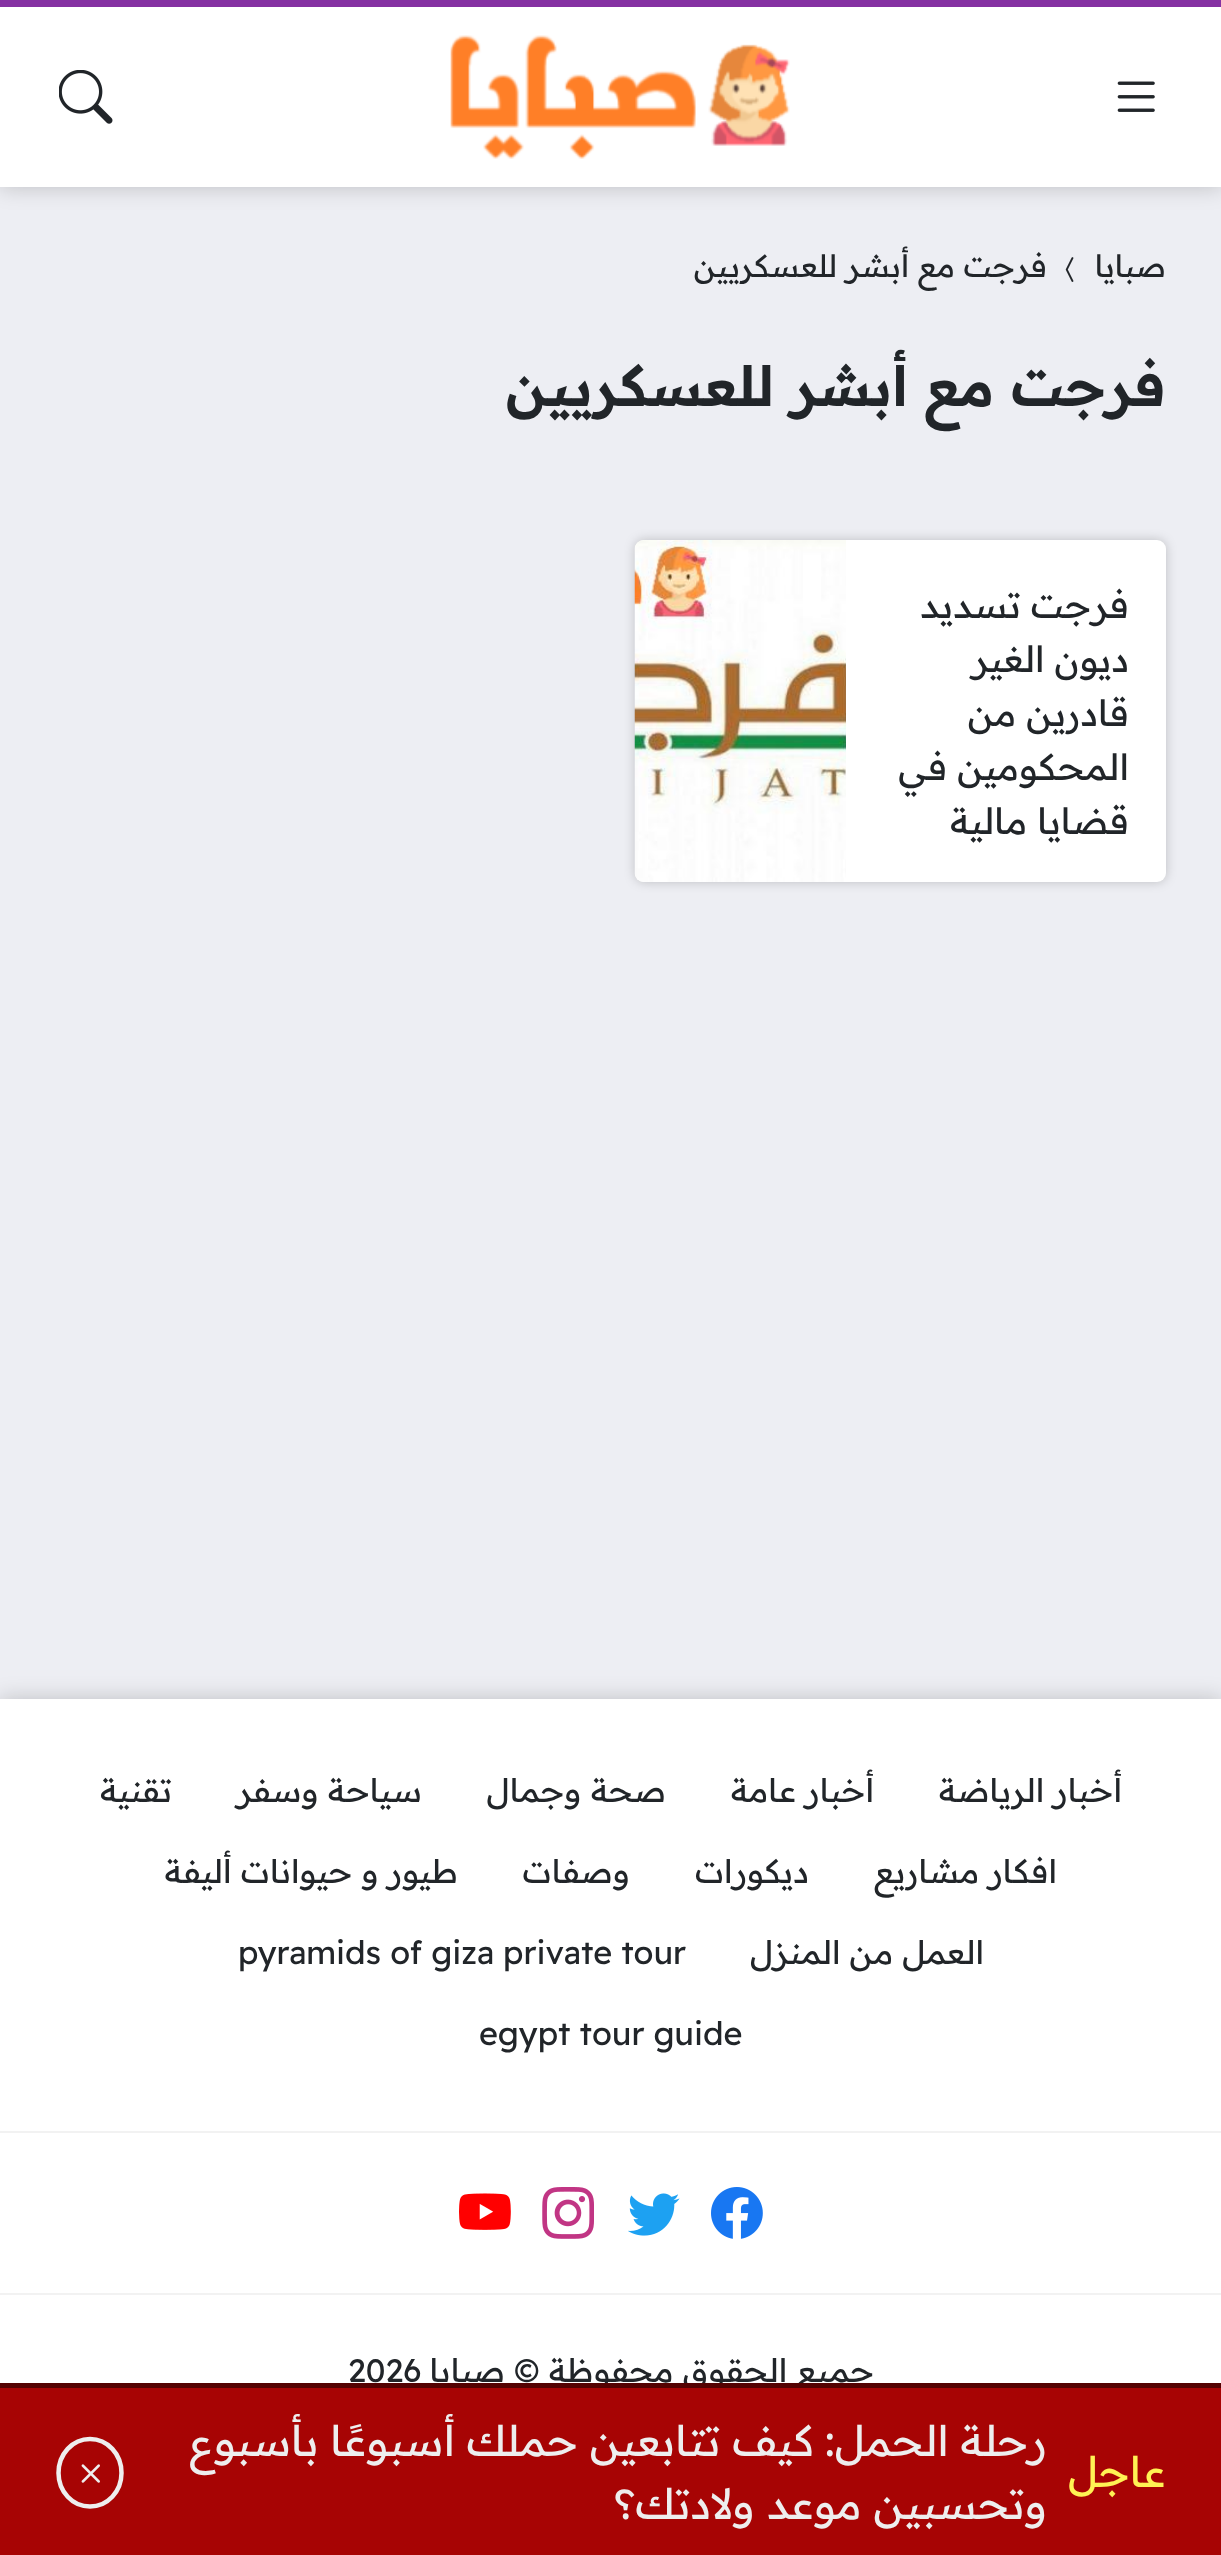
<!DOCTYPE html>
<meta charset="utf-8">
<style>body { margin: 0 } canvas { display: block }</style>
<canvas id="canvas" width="1221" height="2555"></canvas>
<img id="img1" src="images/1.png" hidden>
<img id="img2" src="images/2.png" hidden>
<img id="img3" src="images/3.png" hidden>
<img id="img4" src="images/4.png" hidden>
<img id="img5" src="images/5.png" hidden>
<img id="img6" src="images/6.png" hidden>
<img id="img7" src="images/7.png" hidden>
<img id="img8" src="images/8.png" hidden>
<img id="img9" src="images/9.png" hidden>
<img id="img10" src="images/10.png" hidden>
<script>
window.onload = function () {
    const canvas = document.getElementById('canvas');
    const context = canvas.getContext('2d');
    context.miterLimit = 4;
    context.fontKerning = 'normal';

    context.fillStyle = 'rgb(237, 238, 243)';
    context.fillRect(0, 0, 1221, 2555);
    context.fillStyle = 'rgba(0, 0, 0, 0.2)';
    context.filter = 'blur(11px)';
    context.beginPath();
    context.rect(0, 0, 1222, 187);
    context.fill();
    context.filter = 'none';
    context.fillStyle = 'rgb(133, 49, 162)';
    context.fillRect(0, 0, 1221, 7);
    context.fillStyle = 'rgb(255, 255, 255)';
    context.fillRect(0, 7, 1221, 180);
    context.drawImage(document.getElementById('img1'), 1117, 81, 38, 31);
    context.drawImage(document.getElementById('img2'), 450, 35, 340, 124);
    context.drawImage(document.getElementById('img3'), 59, 70, 54, 54);
    context.drawImage(document.getElementById('img4'), 1065, 257, 9, 25);
    context.fillStyle = 'rgba(0, 0, 0, 0.2)';
    context.filter = 'blur(5.5px)';
    context.beginPath();
    context.roundRect(635, 540, 531, 342, 9);
    context.fill();
    context.filter = 'none';
    context.fillStyle = 'rgb(255, 255, 255)';
    context.beginPath();
    context.roundRect(635, 540, 531, 342, 9);
    context.fill();
    context.drawImage(document.getElementById('img5'), 634, 540, 212, 342);
    context.fillStyle = 'rgba(0, 0, 0, 0.2)';
    context.filter = 'blur(11px)';
    context.beginPath();
    context.rect(0, 1699, 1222, 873);
    context.fill();
    context.filter = 'none';
    context.fillStyle = 'rgb(255, 255, 255)';
    context.fillRect(0, 1699, 1221, 432);
    context.fillRect(0, 2133, 1221, 160);
    context.fillStyle = 'rgb(242, 242, 242)';
    context.fillRect(0, 2131, 1221, 2);
    context.drawImage(document.getElementById('img6'), 711, 2187, 52, 52);
    context.drawImage(document.getElementById('img7'), 628, 2193, 52, 43);
    context.drawImage(document.getElementById('img8'), 542, 2187, 52, 52);
    context.drawImage(document.getElementById('img9'), 459, 2193, 52, 37);
    context.fillStyle = 'rgb(255, 255, 255)';
    context.fillRect(0, 2295, 1221, 88);
    context.fillStyle = 'rgb(242, 242, 242)';
    context.fillRect(0, 2293, 1221, 2);
    context.direction = 'rtl';
    context.font = '30.6px Readex Pro';
    context.fillStyle = 'rgb(33, 37, 41)';
    context.fillText('صبايا', 1166, 277);
    context.fillText('فرجت مع أبشر للعسكريين', 1047, 277);
    context.font = '600 55.5px Readex Pro';
    context.fillText('فرجت مع أبشر للعسكريين', 1166, 406);
    context.font = '36px Readex Pro';
    context.fillText('فرجت تسديد', 1129, 618);
    context.fillText('ديون الغير', 1129, 672);
    context.fillText('قادرين من', 1129, 726);
    context.fillText('المحكومين في', 1129, 780);
    context.fillText('قضايا مالية', 1129, 834);
    context.font = '32.4px Readex Pro';
    context.fillText('أخبار الرياضة', 1122, 1802);
    context.fillText('أخبار عامة', 874, 1802);
    context.fillText('صحة وجمال', 666, 1802);
    context.fillText('سياحة وسفر', 422, 1802);
    context.fillText('تقنية', 172, 1802);
    context.fillText('افكار مشاريع', 1057, 1883);
    context.fillText('ديكورات', 809, 1883);
    context.fillText('وصفات', 630, 1883);
    context.fillText('طيور و حيوانات أليفة', 458, 1883);
    context.fillText('العمل من المنزل', 984, 1964);
    context.direction = 'ltr';
    context.fillText('pyramids of giza private tour', 238, 1964);
    context.fillText('egypt tour guide', 479, 2045);
    context.direction = 'rtl';
    context.fillText('جميع الحقوق محفوظة © صبايا', 874, 2382);
    context.direction = 'ltr';
    context.fillText('2026', 348, 2382);
    context.fillStyle = 'rgb(167, 4, 4)';
    context.fillRect(0, 2388, 1221, 167);
    context.fillStyle = 'rgb(84, 2, 2)';
    context.fillRect(0, 2383, 1221, 5);
    context.direction = 'rtl';
    context.font = '42.1px Readex Pro';
    context.fillStyle = 'rgb(255, 242, 84)';
    context.fillText('عاجل', 1166, 2487);
    context.fillStyle = 'rgb(238, 238, 238)';
    context.fillText('رحلة الحمل: كيف تتابعين حملك أسبوعًا بأسبوع', 1047, 2456);
    context.fillText('وتحسبين موعد ولادتك؟', 1047, 2519);
    context.beginPath();
    context.moveTo(90, 2439);
    context.bezierCurveTo(107.5, 2439, 121.5, 2454, 121.5, 2473);
    context.bezierCurveTo(121.5, 2491.5, 107.5, 2506.5, 90, 2506.5);
    context.bezierCurveTo(72.5, 2506.5, 58.5, 2491.5, 58.5, 2473);
    context.bezierCurveTo(58.5, 2454, 72.5, 2439, 90, 2439);
    context.closePath();
    context.strokeStyle = 'rgb(238, 238, 238)';
    context.lineWidth = 4.5;
    context.stroke();
    context.drawImage(document.getElementById('img10'), 81, 2464, 19, 19);
};
</script>
